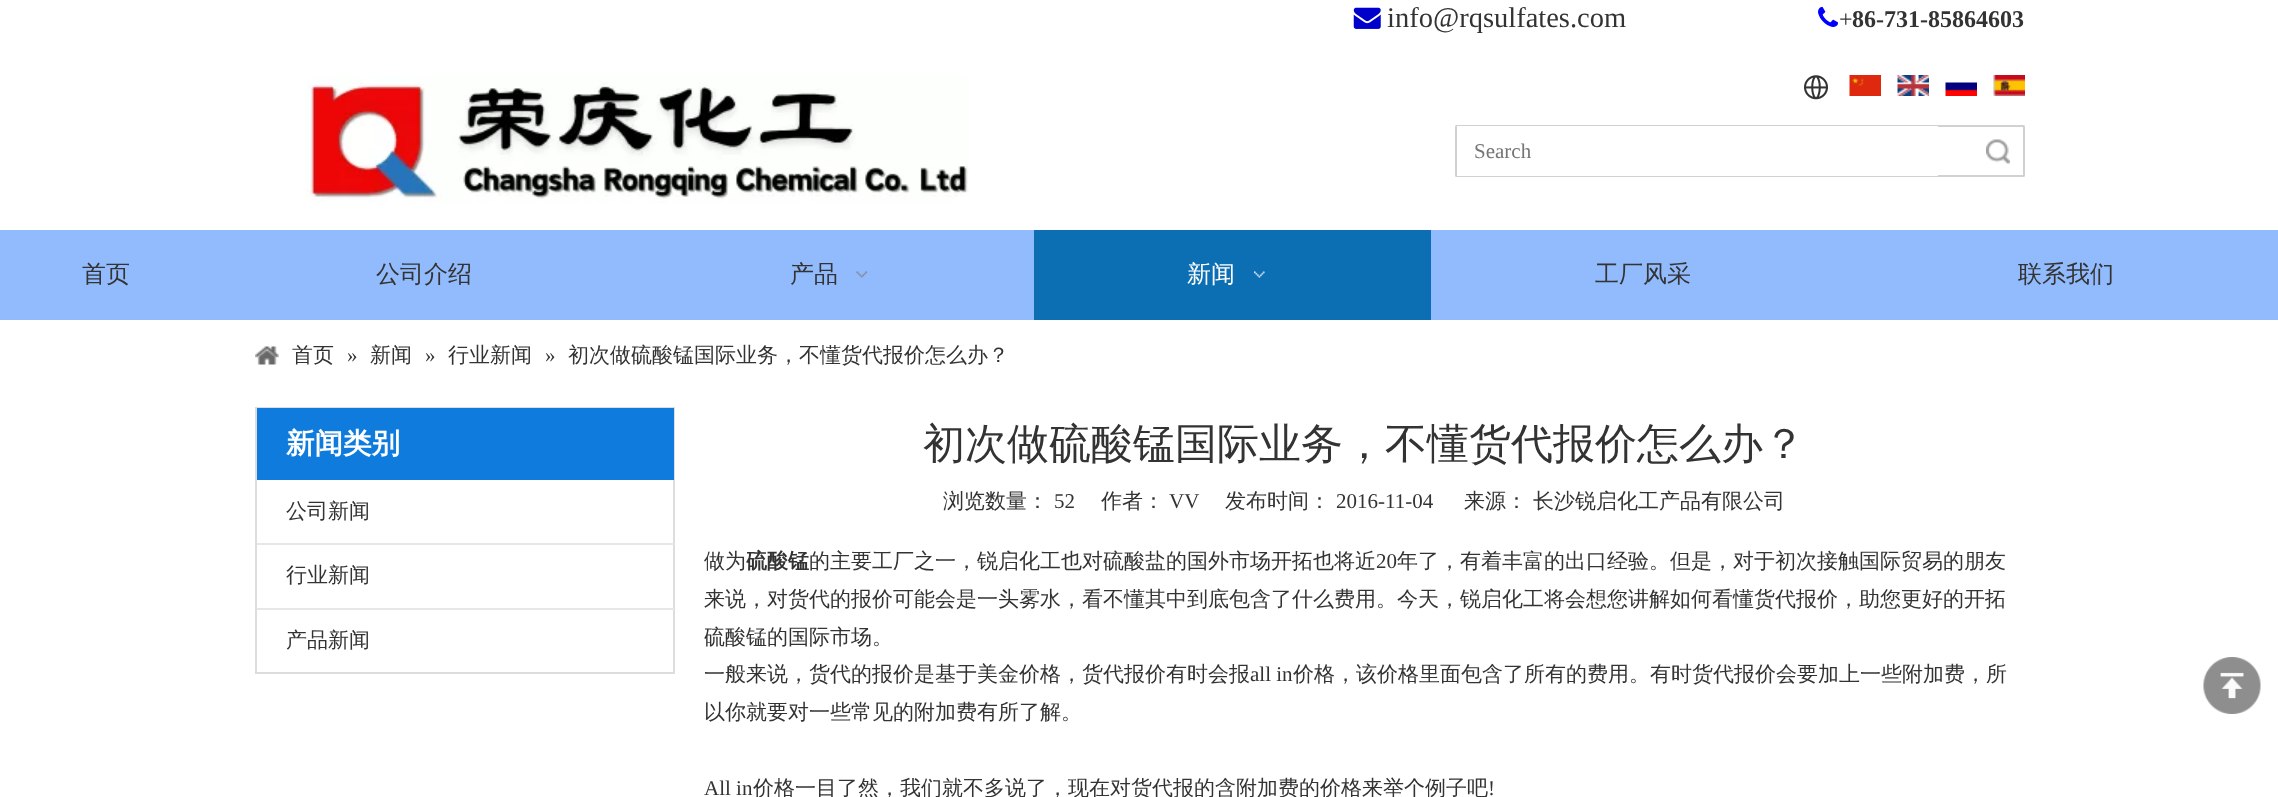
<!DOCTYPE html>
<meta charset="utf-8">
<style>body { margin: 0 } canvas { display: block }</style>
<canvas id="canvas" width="2278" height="797"></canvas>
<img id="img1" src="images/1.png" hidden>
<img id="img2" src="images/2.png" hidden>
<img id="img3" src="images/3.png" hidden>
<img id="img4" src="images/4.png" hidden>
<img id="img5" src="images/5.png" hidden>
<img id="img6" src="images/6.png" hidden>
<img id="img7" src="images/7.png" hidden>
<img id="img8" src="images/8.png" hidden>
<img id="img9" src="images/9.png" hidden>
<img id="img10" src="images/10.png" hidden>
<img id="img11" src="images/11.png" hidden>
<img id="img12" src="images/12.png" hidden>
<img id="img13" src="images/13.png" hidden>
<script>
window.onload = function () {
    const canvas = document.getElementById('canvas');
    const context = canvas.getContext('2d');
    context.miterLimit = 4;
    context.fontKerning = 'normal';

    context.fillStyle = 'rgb(255, 255, 255)';
    context.fillRect(0, 0, 2278, 797);
    context.drawImage(document.getElementById('img1'), 1353, 7, 28, 22);
    context.drawImage(document.getElementById('img2'), 1818, 7, 20, 20);
    context.drawImage(document.getElementById('img3'), 306, 76, 663, 127);
    context.drawImage(document.getElementById('img4'), 1804, 75, 24, 25);
    context.drawImage(document.getElementById('img5'), 1849, 75, 32, 21);
    context.drawImage(document.getElementById('img6'), 1897, 75, 32, 21);
    context.drawImage(document.getElementById('img7'), 1945, 82, 32, 14);
    context.drawImage(document.getElementById('img8'), 1993, 75, 32, 21);
    context.beginPath();
    context.roundRect(1456, 126, 568, 50, 0.5);
    context.strokeStyle = 'rgb(209, 209, 209)';
    context.lineWidth = 2;
    context.stroke();
    context.fillRect(1457, 126, 481, 50);
    context.drawImage(document.getElementById('img9'), 1986, 139, 24, 25);
    context.fillStyle = 'rgb(146, 187, 254)';
    context.fillRect(0, 230, 2278, 90);
    context.drawImage(document.getElementById('img10'), 856, 271, 11, 7);
    context.fillStyle = 'rgb(12, 111, 179)';
    context.fillRect(1034, 230, 397, 90);
    context.drawImage(document.getElementById('img11'), 1254, 271, 11, 7);
    context.drawImage(document.getElementById('img12'), 255, 346, 24, 19);
    context.strokeStyle = 'rgb(221, 221, 221)';
    context.strokeRect(256, 408, 418, 265);
    context.fillStyle = 'rgb(14, 123, 221)';
    context.fillRect(257, 408, 417, 72);
    context.fillStyle = 'rgb(231, 231, 231)';
    context.fillRect(257, 543, 417, 2);
    context.fillRect(257, 608, 417, 2);
    context.drawImage(document.getElementById('img13'), 2203, 657, 58, 57);
    context.font = '28.5px Liberation Serif';
    context.fillStyle = 'rgb(51, 51, 51)';
    context.fillText('info@rqsulfates.com', 1387, 27);
    context.font = '24px Liberation Serif';
    context.fillText('+', 1839, 27);
    context.font = 'bold 24px Liberation Serif';
    context.fillText('86-731-85864603', 1852, 27);
    context.font = '21px Liberation Serif';
    context.fillStyle = 'rgb(117, 117, 117)';
    context.fillText('Search', 1474, 158);
    context.font = '500 24px WenQuanYi Zen Hei';
    context.fillStyle = 'rgb(51, 51, 51)';
    context.fillText('首页', 82, 282);
    context.fillText('公司介绍', 376, 282);
    context.fillText('产品', 790, 282);
    context.fillStyle = 'rgb(255, 255, 255)';
    context.fillText('新闻', 1187, 282);
    context.fillStyle = 'rgb(51, 51, 51)';
    context.fillText('工厂风采', 1595, 282);
    context.fillText('联系我们', 2018, 282);
    context.font = '500 21px WenQuanYi Zen Hei';
    context.fillText('首页', 292, 362);
    context.font = '21px Liberation Serif';
    context.fillText('»', 347, 362);
    context.font = '500 21px WenQuanYi Zen Hei';
    context.fillText('新闻', 370, 362);
    context.font = '21px Liberation Serif';
    context.fillText('»', 425, 362);
    context.font = '500 21px WenQuanYi Zen Hei';
    context.fillText('行业新闻', 448, 362);
    context.font = '21px Liberation Serif';
    context.fillText('»', 545, 362);
    context.font = '500 21px WenQuanYi Zen Hei';
    context.fillText('初次做硫酸锰国际业务，不懂货代报价怎么办？', 568, 362);
    context.font = 'bold 28.5px WenQuanYi Zen Hei';
    context.fillStyle = 'rgb(255, 255, 255)';
    context.fillText('新闻类别', 286, 453);
    context.font = '500 21px WenQuanYi Zen Hei';
    context.fillStyle = 'rgb(51, 51, 51)';
    context.fillText('公司新闻', 286, 518);
    context.fillText('行业新闻', 286, 582);
    context.fillText('产品新闻', 286, 647);
    context.font = '500 42px WenQuanYi Zen Hei';
    context.fillText('初次做硫酸锰国际业务，不懂货代报价怎么办？', 923, 458);
    context.font = '500 21px WenQuanYi Zen Hei';
    context.fillText('浏览数量：', 943, 508);
    context.font = '21px Liberation Serif';
    context.fillText('52', 1054, 508);
    context.font = '500 21px WenQuanYi Zen Hei';
    context.fillText('作者：', 1101, 508);
    context.font = '21px Liberation Serif';
    context.fillText('VV', 1169, 508);
    context.font = '500 21px WenQuanYi Zen Hei';
    context.fillText('发布时间：', 1225, 508);
    context.font = '21px Liberation Serif';
    context.fillText('2016-11-04', 1336, 508);
    context.font = '500 21px WenQuanYi Zen Hei';
    context.fillText('来源：', 1464, 508);
    context.fillText('长沙锐启化工产品有限公司', 1533, 508);
    context.fillText('做为', 704, 568);
    context.font = 'bold 21px WenQuanYi Zen Hei';
    context.fillText('硫酸锰', 746, 568);
    context.font = '500 21px WenQuanYi Zen Hei';
    context.fillText('的主要工厂之一，锐启化工也对硫酸盐的国外市场开拓也将近', 809, 568);
    context.font = '21px Liberation Serif';
    context.fillText('20', 1376, 568);
    context.font = '500 21px WenQuanYi Zen Hei';
    context.fillText('年了，有着丰富的出口经验。但是，对于初次接触国际贸易的朋友', 1397, 568);
    context.fillText('来说，对货代的报价可能会是一头雾水，看不懂其中到底包含了什么费用。今天，锐启化工将会想您讲解如何看懂货代报价，助您更好的开拓', 704, 606);
    context.fillText('硫酸锰的国际市场。', 704, 644);
    context.fillText('一般来说，货代的报价是基于美金价格，货代报价有时会报', 704, 681);
    context.font = '21px Liberation Serif';
    context.fillText('all in', 1250, 681);
    context.font = '500 21px WenQuanYi Zen Hei';
    context.fillText('价格，该价格里面包含了所有的费用。有时货代报价会要加上一些附加费，所', 1293, 681);
    context.fillText('以你就要对一些常见的附加费有所了解。', 704, 719);
    context.font = '21px Liberation Serif';
    context.fillText('All in', 704, 795);
    context.font = '500 21px WenQuanYi Zen Hei';
    context.fillText('价格一目了然，我们就不多说了，现在对货代报的含附加费的价格来举个例子吧', 753, 795);
    context.font = '21px Liberation Serif';
    context.fillText('!', 1488, 795);
};
</script>
